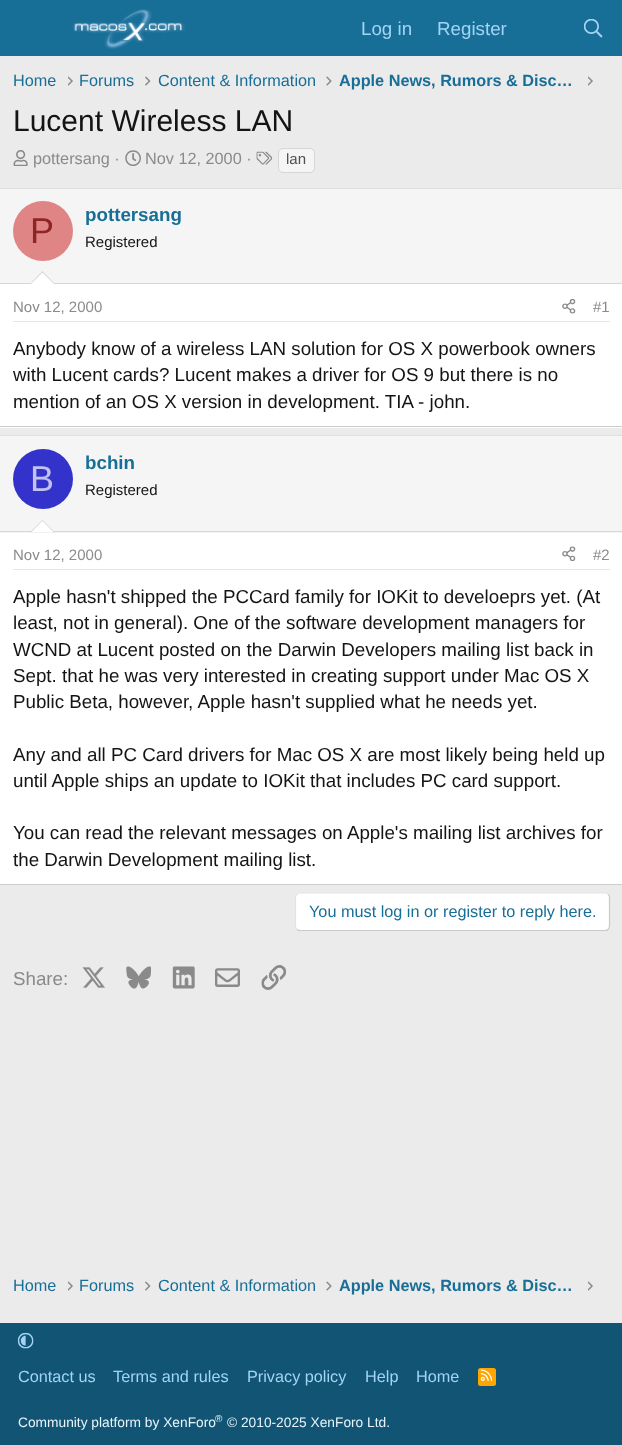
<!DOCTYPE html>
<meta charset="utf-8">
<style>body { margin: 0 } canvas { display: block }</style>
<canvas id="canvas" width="622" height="1445"></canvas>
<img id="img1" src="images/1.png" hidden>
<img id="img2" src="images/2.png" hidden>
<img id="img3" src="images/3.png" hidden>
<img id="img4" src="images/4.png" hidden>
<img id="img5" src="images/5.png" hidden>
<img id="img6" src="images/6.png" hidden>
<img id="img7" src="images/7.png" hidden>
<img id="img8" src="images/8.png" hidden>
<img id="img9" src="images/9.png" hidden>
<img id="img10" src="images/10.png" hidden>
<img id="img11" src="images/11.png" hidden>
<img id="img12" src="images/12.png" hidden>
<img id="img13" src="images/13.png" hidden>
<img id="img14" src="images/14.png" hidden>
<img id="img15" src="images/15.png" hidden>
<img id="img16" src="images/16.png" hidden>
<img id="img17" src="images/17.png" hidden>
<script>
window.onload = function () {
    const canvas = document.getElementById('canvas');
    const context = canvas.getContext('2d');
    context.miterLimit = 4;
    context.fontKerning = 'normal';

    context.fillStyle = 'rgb(235, 235, 235)';
    context.fillRect(0, 0, 622, 1445);
    context.fillStyle = 'rgb(23, 110, 151)';
    context.fillRect(0, 0, 622, 56);
    context.drawImage(document.getElementById('img1'), 72, 9, 113, 40);
    context.drawImage(document.getElementById('img2'), 584, 19, 19, 19);
    context.drawImage(document.getElementById('img3'), 68, 76, 5, 10);
    context.drawImage(document.getElementById('img4'), 145, 76, 6, 10);
    context.drawImage(document.getElementById('img5'), 326, 76, 6, 10);
    context.drawImage(document.getElementById('img3'), 588, 76, 5, 10);
    context.drawImage(document.getElementById('img6'), 13, 150, 15, 16);
    context.drawImage(document.getElementById('img7'), 125, 150, 16, 16);
    context.drawImage(document.getElementById('img8'), 256, 151, 17, 14);
    context.fillStyle = 'rgb(245, 245, 245)';
    context.beginPath();
    context.roundRect(278.5, 148.5, 36, 24, 4.5);
    context.fill();
    context.strokeStyle = 'rgb(214, 214, 214)';
    context.stroke();
    context.fillStyle = 'rgb(255, 255, 255)';
    context.fillRect(0, 284, 622, 144);
    context.fillStyle = 'rgb(224, 224, 224)';
    context.fillRect(0, 188, 622, 1);
    context.fillStyle = 'rgb(204, 204, 204)';
    context.fillRect(0, 426, 622, 1);
    context.fillStyle = 'rgb(245, 245, 245)';
    context.fillRect(0, 189, 622, 94);
    context.fillStyle = 'rgb(214, 214, 214)';
    context.fillRect(0, 283, 622, 1);
    context.fillStyle = 'rgb(224, 133, 133)';
    context.beginPath();
    context.arc(43, 231, 30, 0, 2 * Math.PI);
    context.fill();
    context.fillStyle = 'rgb(214, 214, 214)';
    context.beginPath();
    context.moveTo(55, 284);
    context.lineTo(30, 284);
    context.lineTo(42.5, 271);
    context.closePath();
    context.fill();
    context.fillStyle = 'rgb(255, 255, 255)';
    context.beginPath();
    context.moveTo(54, 284);
    context.lineTo(31, 284);
    context.lineTo(42.5, 272.5);
    context.closePath();
    context.fill();
    context.fillStyle = 'rgb(230, 230, 230)';
    context.fillRect(13, 321, 597, 1);
    context.drawImage(document.getElementById('img9'), 562, 299, 14, 15);
    context.fillStyle = 'rgb(255, 255, 255)';
    context.fillRect(0, 533, 622, 351);
    context.fillStyle = 'rgb(224, 224, 224)';
    context.fillRect(0, 435, 622, 1);
    context.fillStyle = 'rgb(204, 204, 204)';
    context.fillRect(0, 884, 622, 1);
    context.fillStyle = 'rgb(245, 245, 245)';
    context.fillRect(0, 436, 622, 97);
    context.fillStyle = 'rgb(214, 214, 214)';
    context.fillRect(0, 531, 622, 1);
    context.fillStyle = 'rgb(51, 51, 204)';
    context.beginPath();
    context.arc(43, 479, 30, 0, 2 * Math.PI);
    context.fill();
    context.fillStyle = 'rgb(214, 214, 214)';
    context.beginPath();
    context.moveTo(55, 532.5);
    context.lineTo(30, 532.5);
    context.lineTo(42.5, 520);
    context.closePath();
    context.fill();
    context.fillStyle = 'rgb(255, 255, 255)';
    context.beginPath();
    context.moveTo(54, 532.5);
    context.lineTo(31, 532.5);
    context.lineTo(42.5, 521);
    context.closePath();
    context.fill();
    context.fillStyle = 'rgb(230, 230, 230)';
    context.fillRect(13, 569, 597, 1);
    context.drawImage(document.getElementById('img10'), 562, 546, 14, 15);
    context.fillStyle = 'rgb(255, 255, 255)';
    context.beginPath();
    context.roundRect(295, 893, 315, 38, 5);
    context.fill();
    context.beginPath();
    context.moveTo(608, 894.5);
    context.bezierCurveTo(609, 895, 609.5, 896.5, 609.5, 897.5);
    context.lineTo(609.5, 926);
    context.bezierCurveTo(609.5, 927.5, 609, 928.5, 608, 929.5);
    context.bezierCurveTo(607.5, 930, 606, 930.5, 605, 930.5);
    context.lineTo(300, 930.5);
    context.bezierCurveTo(299, 930.5, 297.5, 930, 297, 929.5);
    context.strokeStyle = 'rgb(201, 201, 201)';
    context.lineWidth = 1.2;
    context.stroke();
    context.beginPath();
    context.moveTo(297, 929.5);
    context.bezierCurveTo(296, 928.5, 295.5, 927.5, 295.5, 926);
    context.lineTo(295.5, 897.5);
    context.bezierCurveTo(295.5, 896.5, 296, 895, 297, 894.5);
    context.bezierCurveTo(297.5, 893.5, 299, 893, 300, 893);
    context.lineTo(605, 893);
    context.bezierCurveTo(606, 893, 607.5, 893.5, 608, 894.5);
    context.strokeStyle = 'rgb(227, 227, 227)';
    context.stroke();
    context.drawImage(document.getElementById('img11'), 82, 967, 23, 21);
    context.drawImage(document.getElementById('img12'), 126, 966, 25, 23);
    context.drawImage(document.getElementById('img13'), 172, 966, 23, 23);
    context.drawImage(document.getElementById('img14'), 215, 968, 25, 19);
    context.drawImage(document.getElementById('img15'), 261, 965, 25, 25);
    context.drawImage(document.getElementById('img3'), 68, 1281, 5, 10);
    context.drawImage(document.getElementById('img4'), 145, 1281, 6, 10);
    context.drawImage(document.getElementById('img5'), 326, 1281, 6, 10);
    context.drawImage(document.getElementById('img3'), 588, 1281, 5, 10);
    context.fillStyle = 'rgb(17, 84, 115)';
    context.fillRect(0, 1323, 622, 122);
    context.drawImage(document.getElementById('img16'), 17, 1332, 17, 17);
    context.fillStyle = 'rgb(255, 165, 0)';
    context.beginPath();
    context.roundRect(478, 1368, 18, 18, 2.5);
    context.fill();
    context.drawImage(document.getElementById('img17'), 480, 1369, 13, 12);
    context.font = '18.75px Liberation Sans';
    context.fillStyle = 'rgb(163, 212, 245)';
    context.fillText('Log in', 361, 35);
    context.fillText('Register', 437, 35);
    context.font = '16.25px Liberation Sans';
    context.fillStyle = 'rgb(23, 110, 151)';
    context.fillText('Home', 13, 86);
    context.fillText('Forums', 79, 86);
    context.fillText('Content & Information', 158, 86);
    context.font = 'bold 16.25px Liberation Sans';
    context.fillText('Apple News, Rumors & Disc…', 339, 86);
    context.font = '30px Liberation Sans';
    context.fillStyle = 'rgb(20, 20, 20)';
    context.fillText('Lucent Wireless LAN', 13, 131);
    context.font = '16.25px Liberation Sans';
    context.fillStyle = 'rgb(138, 138, 138)';
    context.fillText('pottersang ·', 33, 164);
    context.fillText('Nov 12, 2000 ·', 145, 164);
    context.font = '15px Liberation Sans';
    context.fillStyle = 'rgb(79, 79, 79)';
    context.fillText('lan', 286, 164);
    context.font = '36px Liberation Sans';
    context.fillStyle = 'rgb(143, 36, 36)';
    context.fillText('P', 30, 243);
    context.font = 'bold 18.75px Liberation Sans';
    context.fillStyle = 'rgb(23, 110, 151)';
    context.fillText('pottersang', 85, 221);
    context.font = '15px Liberation Sans';
    context.fillStyle = 'rgb(20, 20, 20)';
    context.fillText('Registered', 85, 247);
    context.fillStyle = 'rgb(138, 138, 138)';
    context.fillText('Nov 12, 2000', 13, 312);
    context.fillText('#1', 593, 312);
    context.font = '18.75px Liberation Sans';
    context.fillStyle = 'rgb(20, 20, 20)';
    context.fillText('Anybody know of a wireless LAN solution for OS X powerbook owners', 13, 355);
    context.fillText('with Lucent cards? Lucent makes a driver for OS 9 but there is no', 13, 381);
    context.fillText('mention of an OS X version in development. TIA - john.', 13, 408);
    context.font = '36px Liberation Sans';
    context.fillStyle = 'rgb(194, 194, 240)';
    context.fillText('B', 30, 491);
    context.font = 'bold 18.75px Liberation Sans';
    context.fillStyle = 'rgb(23, 110, 151)';
    context.fillText('bchin', 85, 469);
    context.font = '15px Liberation Sans';
    context.fillStyle = 'rgb(20, 20, 20)';
    context.fillText('Registered', 85, 495);
    context.fillStyle = 'rgb(138, 138, 138)';
    context.fillText('Nov 12, 2000', 13, 560);
    context.fillText('#2', 593, 560);
    context.font = '18.75px Liberation Sans';
    context.fillStyle = 'rgb(20, 20, 20)';
    context.fillText('Apple hasn\'t shipped the PCCard family for IOKit to develoeprs yet. (At', 13, 603);
    context.fillText('least, not in general). One of the software development managers for', 13, 629);
    context.fillText('WCND at Lucent posted on the Darwin Developers mailing list back in', 13, 656);
    context.fillText('Sept. that he was very interested in creating support under Mac OS X', 13, 682);
    context.fillText('Public Beta, however, Apple hasn\'t supplied what he needs yet.', 13, 708);
    context.fillText('Any and all PC Card drivers for Mac OS X are most likely being held up', 13, 761);
    context.fillText('until Apple ships an update to IOKit that includes PC card support.', 13, 787);
    context.fillText('You can read the relevant messages on Apple\'s mailing list archives for', 13, 839);
    context.fillText('the Darwin Development mailing list.', 13, 866);
    context.font = '16.25px Liberation Sans';
    context.fillStyle = 'rgb(23, 110, 151)';
    context.fillText('You must log in or register to reply here.', 309, 917);
    context.font = '18.75px Liberation Sans';
    context.fillStyle = 'rgb(138, 138, 138)';
    context.fillText('Share:', 13, 985);
    context.font = '16.25px Liberation Sans';
    context.fillStyle = 'rgb(23, 110, 151)';
    context.fillText('Home', 13, 1291);
    context.fillText('Forums', 79, 1291);
    context.fillText('Content & Information', 158, 1291);
    context.font = 'bold 16.25px Liberation Sans';
    context.fillText('Apple News, Rumors & Disc…', 339, 1291);
    context.font = '16.25px Liberation Sans';
    context.fillStyle = 'rgb(163, 212, 245)';
    context.fillText('Contact us', 18, 1382);
    context.fillText('Terms and rules', 113, 1382);
    context.fillText('Privacy policy', 247, 1382);
    context.fillText('Help', 365, 1382);
    context.fillText('Home', 416, 1382);
    context.font = '13.75px Liberation Sans';
    context.fillStyle = 'rgb(232, 244, 252)';
    context.fillText('Community platform by XenForo', 18, 1427);
    context.font = '10px Liberation Sans';
    context.fillText('®', 215, 1422);
    context.font = '13.75px Liberation Sans';
    context.fillText('© 2010-2025 XenForo Ltd.', 227, 1427);
};
</script>
